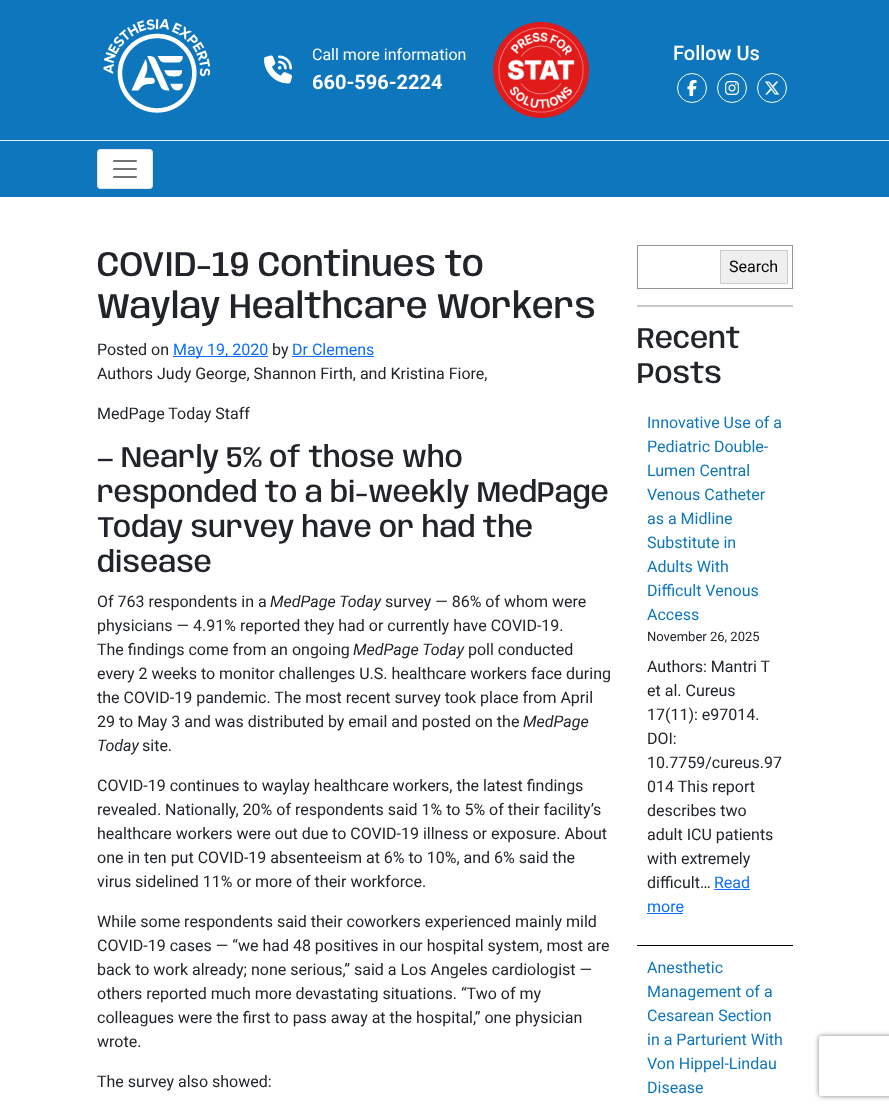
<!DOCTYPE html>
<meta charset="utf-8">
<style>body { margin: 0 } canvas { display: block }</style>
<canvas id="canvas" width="889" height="1110"></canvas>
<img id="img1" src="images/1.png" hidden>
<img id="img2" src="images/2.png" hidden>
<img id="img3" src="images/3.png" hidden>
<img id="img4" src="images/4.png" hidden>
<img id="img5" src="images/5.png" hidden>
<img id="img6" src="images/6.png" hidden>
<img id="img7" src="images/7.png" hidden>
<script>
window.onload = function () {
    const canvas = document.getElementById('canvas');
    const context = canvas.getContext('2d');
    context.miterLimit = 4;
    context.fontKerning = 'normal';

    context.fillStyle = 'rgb(255, 255, 255)';
    context.fillRect(0, 0, 889, 1110);
    context.fillStyle = 'rgb(14, 118, 188)';
    context.fillRect(0, 0, 889, 140);
    context.fillStyle = 'rgb(234, 234, 234)';
    context.fillRect(0, 140, 889, 1);
    context.drawImage(document.getElementById('img1'), 103, 18, 108, 95);
    context.drawImage(document.getElementById('img2'), 264, 55, 28, 29);
    context.drawImage(document.getElementById('img3'), 493, 22, 96, 96);
    context.beginPath();
    context.arc(692, 88, 14.5, 0, 2 * Math.PI);
    context.strokeStyle = 'rgb(255, 255, 255)';
    context.stroke();
    context.drawImage(document.getElementById('img4'), 687, 80, 10, 16);
    context.beginPath();
    context.arc(732, 88, 14.5, 0, 2 * Math.PI);
    context.stroke();
    context.drawImage(document.getElementById('img5'), 725, 81, 14, 14);
    context.beginPath();
    context.arc(772, 88, 14.5, 0, 2 * Math.PI);
    context.stroke();
    context.drawImage(document.getElementById('img6'), 765, 81, 15, 14);
    context.fillStyle = 'rgb(14, 118, 188)';
    context.fillRect(0, 141, 889, 56);
    context.fillStyle = 'rgb(255, 255, 255)';
    context.beginPath();
    context.roundRect(97, 149, 56, 40, 4);
    context.fill();
    context.beginPath();
    context.roundRect(97.5, 149.5, 55, 39, 3.5);
    context.strokeStyle = 'rgba(0, 0, 0, 0.1)';
    context.stroke();
    context.drawImage(document.getElementById('img7'), 113, 160, 24, 18);
    context.fillStyle = 'rgb(13, 110, 253)';
    context.fillRect(173, 356, 95, 1);
    context.fillRect(292, 356, 82, 1);
    context.strokeStyle = 'rgb(148, 148, 148)';
    context.strokeRect(637.5, 245.5, 155, 43);
    context.fillStyle = 'rgb(239, 239, 239)';
    context.beginPath();
    context.rect(720.5, 250.5, 67, 33);
    context.fill();
    context.strokeStyle = 'rgb(204, 204, 204)';
    context.stroke();
    context.fillStyle = 'rgb(200, 201, 202)';
    context.fillRect(637, 305, 156, 2);
    context.fillStyle = 'rgb(0, 0, 0)';
    context.fillRect(637, 945, 156, 1);
    context.fillStyle = 'rgb(13, 110, 253)';
    context.fillRect(714, 889, 36, 1);
    context.fillRect(647, 913, 36, 1);
    context.save();
    context.beginPath();
    context.moveTo(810, 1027);
    context.lineTo(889, 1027);
    context.lineTo(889, 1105);
    context.lineTo(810, 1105);
    context.closePath();
    context.moveTo(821, 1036);
    context.lineTo(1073, 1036);
    context.bezierCurveTo(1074, 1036, 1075, 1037, 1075, 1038);
    context.lineTo(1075, 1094);
    context.bezierCurveTo(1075, 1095, 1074, 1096, 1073, 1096);
    context.lineTo(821, 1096);
    context.bezierCurveTo(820, 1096, 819, 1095, 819, 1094);
    context.lineTo(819, 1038);
    context.bezierCurveTo(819, 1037, 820, 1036, 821, 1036);
    context.closePath();
    context.clip('evenodd');
    context.fillStyle = 'rgb(128, 128, 128)';
    context.filter = 'blur(2.5px)';
    context.beginPath();
    context.roundRect(819, 1036, 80, 60, 2);
    context.fill();
    context.filter = 'none';
    context.restore();
    context.font = '16px Roboto';
    context.fillStyle = 'rgb(255, 255, 255)';
    context.fillText('Call more information', 312, 60);
    context.font = 'bold 20px Roboto';
    context.fillText('660-596-2224', 312, 89);
    context.font = '500 20px Roboto';
    context.fillText('Follow Us', 673, 60);
    context.font = '500 35.3px Anybody';
    context.fillStyle = 'rgb(33, 37, 41)';
    context.fillText('COVID-19 Continues to', 97, 276);
    context.fillText('Waylay Healthcare Workers', 97, 318);
    context.font = '16px Roboto';
    context.fillText('Posted on', 97, 355);
    context.fillStyle = 'rgb(13, 110, 253)';
    context.fillText('May 19, 2020', 173, 355);
    context.fillStyle = 'rgb(33, 37, 41)';
    context.fillText('by', 272, 355);
    context.fillStyle = 'rgb(13, 110, 253)';
    context.fillText('Dr Clemens', 292, 355);
    context.fillStyle = 'rgb(33, 37, 41)';
    context.fillText('Authors Judy George, Shannon Firth, and Kristina Fiore,', 97, 379);
    context.fillText('MedPage Today Staff', 97, 419);
    context.font = '500 29.25px Anybody';
    context.fillText('— Nearly 5% of those who', 97, 467);
    context.fillText('responded to a bi-weekly MedPage', 97, 502);
    context.fillText('Today survey have or had the', 97, 537);
    context.fillText('disease', 97, 572);
    context.font = '16px Roboto';
    context.fillText('Of 763 respondents in a', 97, 607);
    context.font = 'italic 16px Roboto';
    context.fillText('MedPage Today', 270, 607);
    context.font = '16px Roboto';
    context.fillText('survey — 86% of whom were', 385, 607);
    context.fillText('physicians — 4.91% reported they had or currently have COVID-19.', 97, 631);
    context.fillText('The findings come from an ongoing', 97, 655);
    context.font = 'italic 16px Roboto';
    context.fillText('MedPage Today', 353, 655);
    context.font = '16px Roboto';
    context.fillText('poll conducted', 468, 655);
    context.fillText('every 2 weeks to monitor challenges U.S. healthcare workers face during', 97, 679);
    context.fillText('the COVID-19 pandemic. The most recent survey took place from April', 97, 703);
    context.fillText('29 to May 3 and was distributed by email and posted on the', 97, 727);
    context.font = 'italic 16px Roboto';
    context.fillText('MedPage', 523, 727);
    context.fillText('Today', 97, 751);
    context.font = '16px Roboto';
    context.fillText('site.', 142, 751);
    context.fillText('COVID-19 continues to waylay healthcare workers, the latest findings', 97, 791);
    context.fillText('revealed. Nationally, 20% of respondents said 1% to 5% of their facility’s', 97, 815);
    context.fillText('healthcare workers were out due to COVID-19 illness or exposure. About', 97, 839);
    context.fillText('one in ten put COVID-19 absenteeism at 6% to 10%, and 6% said the', 97, 863);
    context.fillText('virus sidelined 11% or more of their workforce.', 97, 887);
    context.fillText('While some respondents said their coworkers experienced mainly mild', 97, 927);
    context.fillText('COVID-19 cases — “we had 48 positives in our hospital system, most are', 97, 951);
    context.fillText('back to work already; none serious,” said a Los Angeles cardiologist —', 97, 975);
    context.fillText('others reported much more devastating situations. “Two of my', 97, 999);
    context.fillText('colleagues were the first to pass away at the hospital,” one physician', 97, 1023);
    context.fillText('wrote.', 97, 1047);
    context.fillText('The survey also showed:', 97, 1087);
    context.fillStyle = 'rgb(0, 0, 0)';
    context.fillText('Search', 729, 272);
    context.font = '500 29.25px Anybody';
    context.fillStyle = 'rgb(33, 37, 41)';
    context.fillText('Recent', 637, 348);
    context.fillText('Posts', 637, 383);
    context.font = '16px Roboto';
    context.fillStyle = 'rgb(14, 118, 188)';
    context.fillText('Innovative Use of a', 647, 428);
    context.fillText('Pediatric Double-', 647, 452);
    context.fillText('Lumen Central', 647, 476);
    context.fillText('Venous Catheter', 647, 500);
    context.fillText('as a Midline', 647, 524);
    context.fillText('Substitute in', 647, 548);
    context.fillText('Adults With', 647, 572);
    context.fillText('Difficult Venous', 647, 596);
    context.fillText('Access', 647, 620);
    context.font = '13px Roboto';
    context.fillStyle = 'rgb(33, 37, 41)';
    context.fillText('November 26, 2025', 647, 641);
    context.font = '16px Roboto';
    context.fillText('Authors: Mantri T', 647, 672);
    context.fillText('et al. Cureus', 647, 696);
    context.fillText('17(11): e97014.', 647, 720);
    context.fillText('DOI:', 647, 744);
    context.fillText('10.7759/cureus.97', 647, 768);
    context.fillText('014 This report', 647, 792);
    context.fillText('describes two', 647, 816);
    context.fillText('adult ICU patients', 647, 840);
    context.fillText('with extremely', 647, 864);
    context.fillText('difficult…', 647, 888);
    context.fillStyle = 'rgb(13, 110, 253)';
    context.fillText('Read', 714, 888);
    context.fillText('more', 647, 912);
    context.fillStyle = 'rgb(14, 118, 188)';
    context.fillText('Anesthetic', 647, 973);
    context.fillText('Management of a', 647, 997);
    context.fillText('Cesarean Section', 647, 1021);
    context.fillText('in a Parturient With', 647, 1045);
    context.fillText('Von Hippel-Lindau', 647, 1069);
    context.fillText('Disease', 647, 1093);
};
</script>
